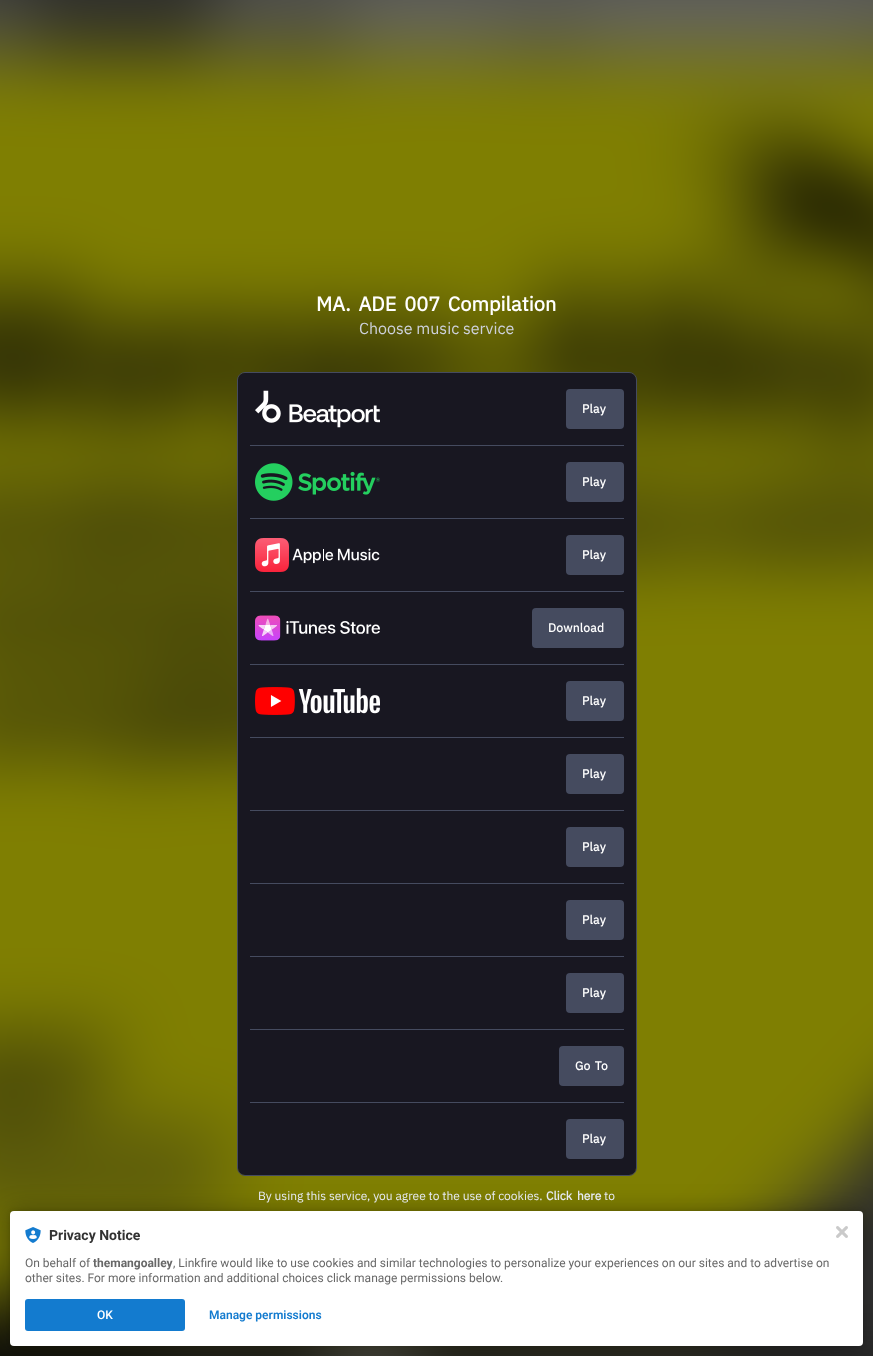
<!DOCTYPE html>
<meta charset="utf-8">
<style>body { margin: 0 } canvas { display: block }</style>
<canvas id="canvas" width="873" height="1356"></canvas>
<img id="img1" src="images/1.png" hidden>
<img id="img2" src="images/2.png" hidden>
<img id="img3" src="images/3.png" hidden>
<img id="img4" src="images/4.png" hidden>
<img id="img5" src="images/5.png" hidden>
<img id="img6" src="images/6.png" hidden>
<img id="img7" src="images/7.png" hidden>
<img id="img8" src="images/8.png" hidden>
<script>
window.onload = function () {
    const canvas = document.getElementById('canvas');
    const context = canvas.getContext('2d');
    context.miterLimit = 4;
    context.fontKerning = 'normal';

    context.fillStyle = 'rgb(0, 0, 0)';
    context.fillRect(0, 0, 873, 1356);
    context.drawImage(document.getElementById('img1'), 0, 0, 873, 1356);
    context.beginPath();
    context.roundRect(237.5, 372.5, 399, 803, 7.5);
    context.strokeStyle = 'rgb(69, 75, 95)';
    context.stroke();
    context.fillStyle = 'rgb(24, 23, 33)';
    context.beginPath();
    context.roundRect(238, 373, 398, 802, 7);
    context.fill();
    context.drawImage(document.getElementById('img2'), 255, 390, 125, 38);
    context.fillStyle = 'rgb(69, 75, 95)';
    context.beginPath();
    context.roundRect(566, 389, 58, 40, 4);
    context.fill();
    context.fillRect(250, 445, 374, 1);
    context.drawImage(document.getElementById('img3'), 255, 463, 125, 38);
    context.beginPath();
    context.roundRect(566, 462, 58, 40, 4);
    context.fill();
    context.fillRect(250, 518, 374, 1);
    context.drawImage(document.getElementById('img4'), 255, 538, 125, 34);
    context.beginPath();
    context.roundRect(566, 535, 58, 40, 4);
    context.fill();
    context.fillRect(250, 591, 374, 1);
    context.drawImage(document.getElementById('img5'), 255, 615, 125, 26);
    context.beginPath();
    context.roundRect(532, 608, 92, 40, 4);
    context.fill();
    context.fillRect(250, 664, 374, 1);
    context.drawImage(document.getElementById('img6'), 255, 687, 125, 28);
    context.beginPath();
    context.roundRect(566, 681, 58, 40, 4);
    context.fill();
    context.fillRect(250, 737, 374, 1);
    context.beginPath();
    context.roundRect(566, 754, 58, 40, 4);
    context.fill();
    context.fillRect(250, 810, 374, 1);
    context.beginPath();
    context.roundRect(566, 827, 58, 40, 4);
    context.fill();
    context.fillRect(250, 883, 374, 1);
    context.beginPath();
    context.roundRect(566, 900, 58, 40, 4);
    context.fill();
    context.fillRect(250, 956, 374, 1);
    context.beginPath();
    context.roundRect(566, 973, 58, 40, 4);
    context.fill();
    context.fillRect(250, 1029, 374, 1);
    context.beginPath();
    context.roundRect(559, 1046, 65, 40, 4);
    context.fill();
    context.fillRect(250, 1102, 374, 1);
    context.beginPath();
    context.roundRect(566, 1119, 58, 40, 4);
    context.fill();
    context.fillStyle = 'rgba(0, 0, 0, 0.12)';
    context.filter = 'blur(2px)';
    context.beginPath();
    context.roundRect(10, 1211, 853, 135, 4);
    context.fill();
    context.filter = 'none';
    context.fillStyle = 'rgba(0, 0, 0, 0.3)';
    context.filter = 'blur(12px)';
    context.beginPath();
    context.roundRect(10, 1211, 853, 135, 4);
    context.fill();
    context.filter = 'none';
    context.fillStyle = 'rgb(255, 255, 255)';
    context.beginPath();
    context.roundRect(10, 1211, 853, 135, 4);
    context.fill();
    context.drawImage(document.getElementById('img7'), 25, 1227, 16, 16);
    context.fillStyle = 'rgb(19, 123, 207)';
    context.beginPath();
    context.roundRect(25, 1299, 160, 32, 3);
    context.fill();
    context.drawImage(document.getElementById('img8'), 836, 1226, 12, 12);
    context.wordSpacing = '3px';
    context.font = 'bold 20px IBM Plex Sans';
    context.fillStyle = 'rgb(255, 255, 255)';
    context.fillText('MA. ADE 007 Compilation', 316, 311);
    context.wordSpacing = '0px';
    context.font = '16px IBM Plex Sans';
    context.fillStyle = 'rgb(205, 209, 219)';
    context.fillText('Choose music service', 359, 334);
    context.letterSpacing = '0.25px';
    context.font = 'bold 12px IBM Plex Sans';
    context.fillStyle = 'rgb(255, 255, 255)';
    context.fillText('Play', 582, 413);
    context.fillText('Play', 582, 486);
    context.fillText('Play', 582, 559);
    context.fillText('Download', 548, 632);
    context.fillText('Play', 582, 705);
    context.fillText('Play', 582, 778);
    context.fillText('Play', 582, 851);
    context.fillText('Play', 582, 924);
    context.fillText('Play', 582, 997);
    context.wordSpacing = '1px';
    context.fillText('Go To', 575, 1070);
    context.wordSpacing = '0px';
    context.fillText('Play', 582, 1143);
    context.letterSpacing = '0px';
    context.font = '12px IBM Plex Sans';
    context.fillStyle = 'rgb(230, 234, 242)';
    context.fillText('By using this service, you agree to the use of cookies.', 258, 1200);
    context.wordSpacing = '2px';
    context.font = 'bold 12px IBM Plex Sans';
    context.fillText('Click here', 546, 1200);
    context.wordSpacing = '0px';
    context.font = '12px IBM Plex Sans';
    context.fillText('to', 604, 1200);
    context.font = 'bold 14px Roboto';
    context.fillStyle = 'rgb(50, 50, 50)';
    context.fillText('Privacy Notice', 49, 1240);
    context.font = '12px Roboto';
    context.fillStyle = 'rgb(104, 104, 104)';
    context.fillText('On behalf of', 25, 1267);
    context.font = 'bold 12px Roboto';
    context.fillText('themangoalley', 93, 1267);
    context.font = '12px Roboto';
    context.fillText(', Linkfire would like to use cookies and similar technologies to personalize your experiences on our sites and to advertise on', 173, 1267);
    context.fillText('other sites. For more information and additional choices click manage permissions below.', 25, 1282);
    context.font = '500 12px Roboto';
    context.fillStyle = 'rgb(255, 255, 255)';
    context.fillText('OK', 97, 1319);
    context.font = '600 12px Roboto';
    context.fillStyle = 'rgb(19, 123, 207)';
    context.fillText('Manage permissions', 209, 1319);
};
</script>
